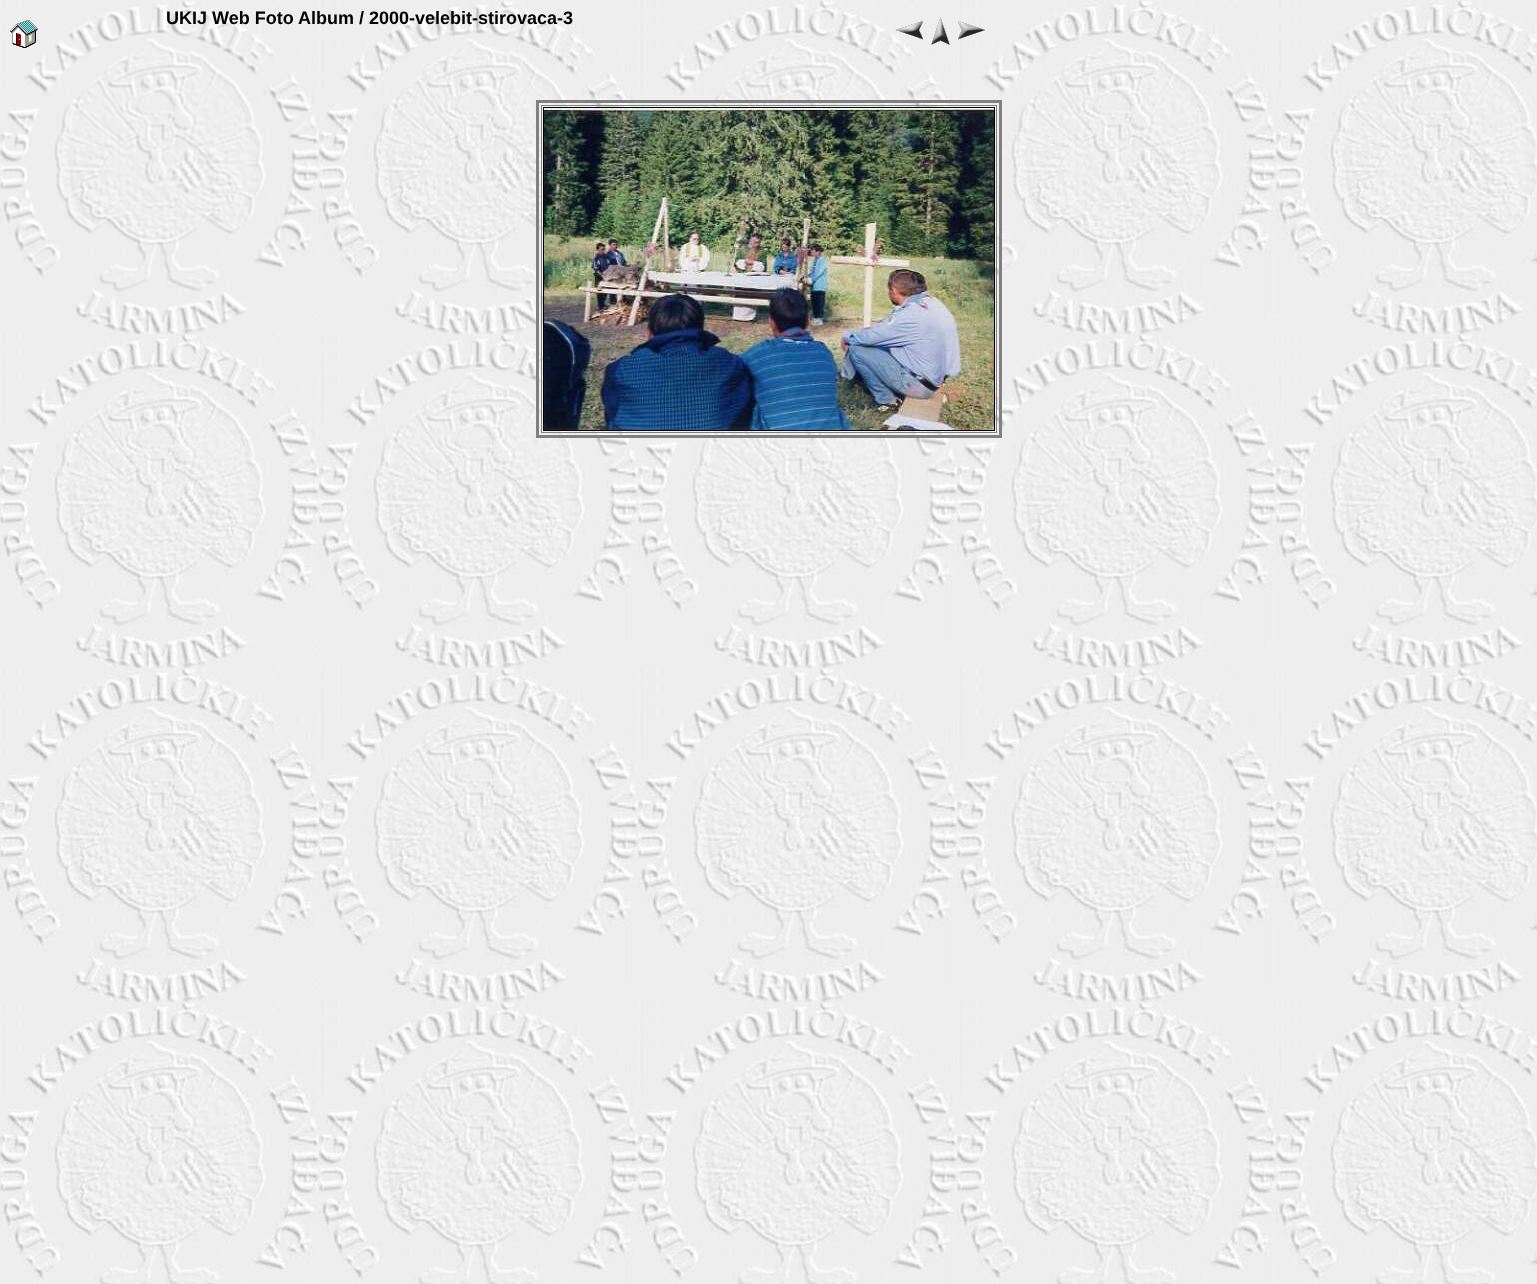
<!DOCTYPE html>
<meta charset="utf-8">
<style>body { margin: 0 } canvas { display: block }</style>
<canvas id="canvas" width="1537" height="1284"></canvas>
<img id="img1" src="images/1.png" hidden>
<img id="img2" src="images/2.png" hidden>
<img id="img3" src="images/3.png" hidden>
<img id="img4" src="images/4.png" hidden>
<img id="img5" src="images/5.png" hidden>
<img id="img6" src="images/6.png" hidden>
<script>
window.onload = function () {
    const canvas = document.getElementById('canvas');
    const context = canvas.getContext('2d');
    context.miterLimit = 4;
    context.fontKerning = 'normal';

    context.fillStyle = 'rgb(255, 255, 255)';
    context.fillRect(0, 0, 1537, 1284);
    context.drawImage(document.getElementById('img1'), 0, 0, 1537, 1284);
    context.drawImage(document.getElementById('img2'), 10, 20, 28, 28);
    context.drawImage(document.getElementById('img3'), 896, 21, 27, 19);
    context.drawImage(document.getElementById('img4'), 931, 17, 19, 28);
    context.drawImage(document.getElementById('img5'), 958, 21, 27, 19);
    context.strokeStyle = 'rgb(128, 128, 128)';
    context.lineWidth = 3;
    context.strokeRect(537.5, 101.5, 463, 335);
    context.lineWidth = 1;
    context.strokeRect(541.5, 105.5, 455, 327);
    context.strokeStyle = 'rgb(0, 0, 0)';
    context.strokeRect(543.5, 107.5, 451, 323);
    context.drawImage(document.getElementById('img6'), 544, 108, 450, 322);
    context.font = 'bold 18px Liberation Sans';
    context.fillStyle = 'rgb(0, 0, 0)';
    context.fillText('UKIJ Web Foto Album / 2000-velebit-stirovaca-3', 166, 24);
};
</script>
